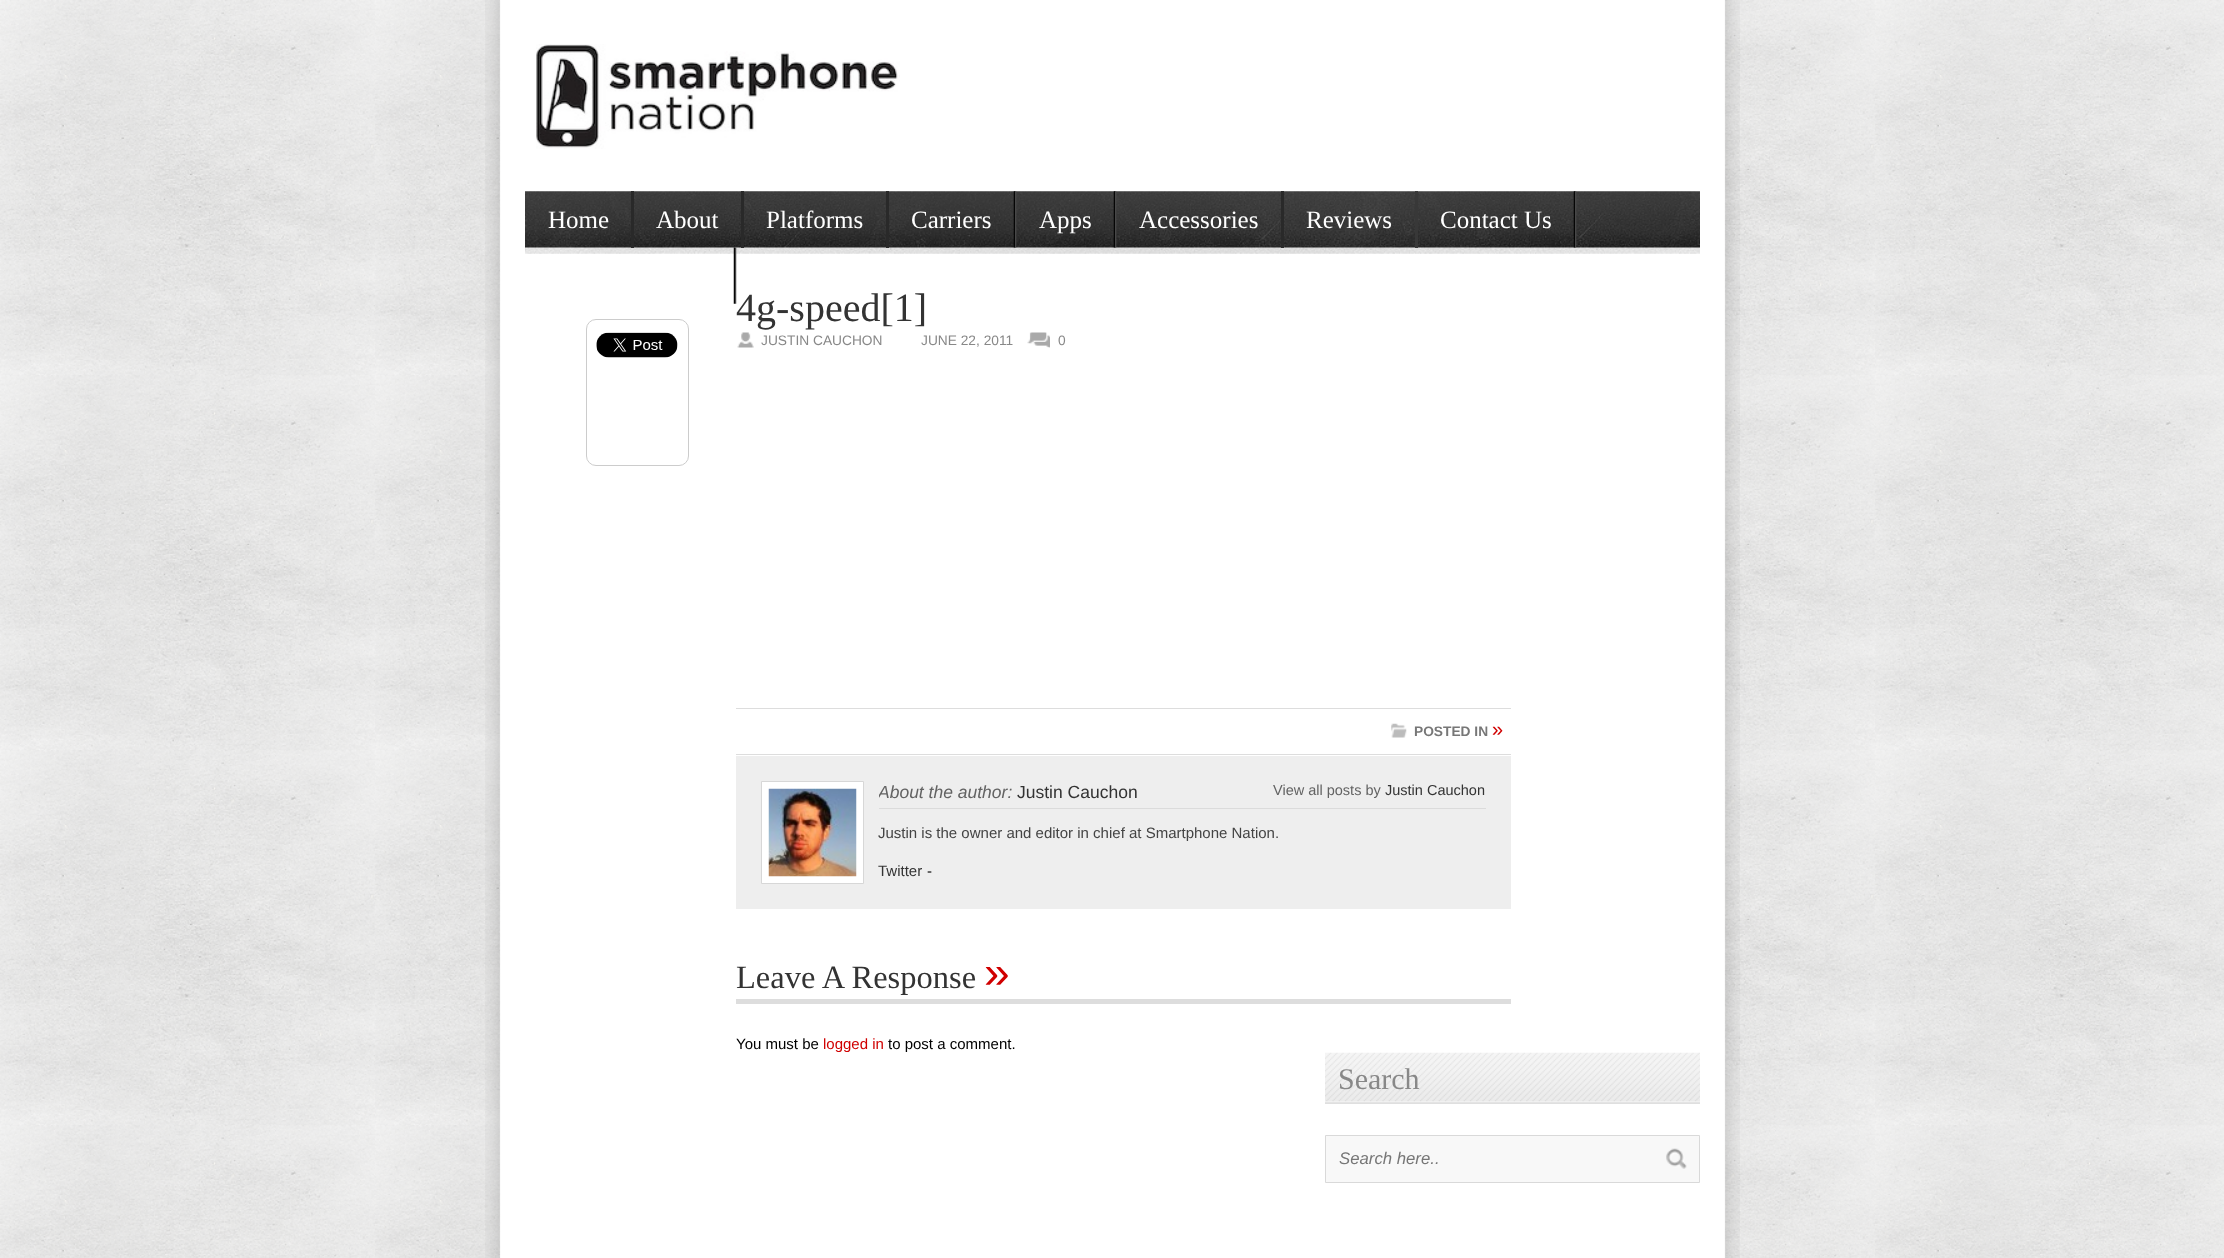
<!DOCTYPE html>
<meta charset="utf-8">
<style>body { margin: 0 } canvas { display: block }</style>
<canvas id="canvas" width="2224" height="1258"></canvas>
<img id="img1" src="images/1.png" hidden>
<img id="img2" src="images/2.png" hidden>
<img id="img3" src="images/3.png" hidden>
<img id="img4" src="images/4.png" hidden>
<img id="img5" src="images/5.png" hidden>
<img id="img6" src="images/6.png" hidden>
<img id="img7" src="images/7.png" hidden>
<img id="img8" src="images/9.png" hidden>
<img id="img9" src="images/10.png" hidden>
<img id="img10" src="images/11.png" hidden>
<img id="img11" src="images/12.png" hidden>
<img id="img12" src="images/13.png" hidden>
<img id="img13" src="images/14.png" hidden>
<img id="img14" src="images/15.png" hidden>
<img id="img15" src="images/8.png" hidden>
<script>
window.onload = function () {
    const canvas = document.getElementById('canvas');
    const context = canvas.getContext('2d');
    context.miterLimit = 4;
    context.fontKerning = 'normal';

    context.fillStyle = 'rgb(246, 246, 246)';
    context.fillRect(0, 0, 2224, 1258);
    context.drawImage(document.getElementById('img1'), 0, 0, 2224, 1258);
    context.drawImage(document.getElementById('img2'), 485, 0, 1255, 1258);
    context.drawImage(document.getElementById('img3'), 536, 44, 364, 105);
    context.drawImage(document.getElementById('img4'), 525, 191, 1175, 63);
    context.fillStyle = 'rgb(41, 41, 41)';
    context.fillRect(631, 191, 3, 57);
    context.fillRect(741, 191, 3, 57);
    context.fillRect(886, 191, 3, 57);
    context.drawImage(document.getElementById('img5'), 1013, 191, 4, 57);
    context.drawImage(document.getElementById('img6'), 1113, 191, 4, 57);
    context.fillRect(1281, 191, 3, 57);
    context.fillStyle = 'rgb(56, 56, 56)';
    context.fillRect(1415, 191, 3, 57);
    context.drawImage(document.getElementById('img7'), 1573, 191, 4, 57);
    context.beginPath();
    context.roundRect(586.5, 319.5, 102, 146, 9.5);
    context.strokeStyle = 'rgb(204, 204, 204)';
    context.stroke();
    context.drawImage(document.getElementById('img8'), 596, 332, 82, 26);
    context.drawImage(document.getElementById('img9'), 737, 332, 17, 16);
    context.drawImage(document.getElementById('img10'), 1027, 332, 23, 16);
    context.fillStyle = 'rgb(221, 221, 221)';
    context.fillRect(736, 708, 775, 1);
    context.fillRect(736, 754, 775, 1);
    context.drawImage(document.getElementById('img11'), 1391, 723, 16, 15);
    context.fillStyle = 'rgb(238, 238, 238)';
    context.fillRect(736, 756, 775, 153);
    context.fillStyle = 'rgb(255, 255, 255)';
    context.beginPath();
    context.rect(761.5, 781.5, 102, 102);
    context.fill();
    context.strokeStyle = 'rgb(215, 215, 215)';
    context.stroke();
    context.drawImage(document.getElementById('img12'), 768, 788, 89, 89);
    context.fillStyle = 'rgb(219, 219, 219)';
    context.fillRect(879, 808, 607, 1);
    context.fillStyle = 'rgb(221, 221, 221)';
    context.fillRect(736, 999, 775, 5);
    context.drawImage(document.getElementById('img13'), 1325, 1052, 375, 52);
    context.fillStyle = 'rgb(248, 248, 248)';
    context.beginPath();
    context.rect(1325.5, 1135.5, 374, 47);
    context.fill();
    context.strokeStyle = 'rgb(217, 217, 217)';
    context.stroke();
    context.drawImage(document.getElementById('img14'), 1666, 1148, 21, 21);
    context.font = '25px Liberation Serif';
    context.fillStyle = 'rgb(255, 255, 255)';
    context.fillText('Home', 548, 228);
    context.fillText('About', 656, 228);
    context.fillText('Platforms', 766, 228);
    context.fillText('Carriers', 911, 228);
    context.fillText('Apps', 1039, 228);
    context.fillText('Accessories', 1139, 228);
    context.fillText('Reviews', 1306, 228);
    context.fillText('Contact Us', 1440, 228);
    context.font = '40px Liberation Serif';
    context.fillStyle = 'rgb(51, 51, 51)';
    context.fillText('4g-speed[1]', 736, 321);
    context.drawImage(document.getElementById('img15'), 733, 247, 4, 57);
    context.font = '13.75px Liberation Sans';
    context.fillStyle = 'rgb(136, 136, 136)';
    context.fillText('JUSTIN CAUCHON', 761, 345);
    context.fillText('JUNE 22, 2011', 921, 345);
    context.fillText('0', 1058, 345);
    context.font = 'bold 13.75px Liberation Sans';
    context.fillStyle = 'rgb(119, 119, 119)';
    context.fillText('POSTED IN', 1414, 736);
    context.font = '20px Liberation Sans';
    context.fillStyle = 'rgb(208, 0, 0)';
    context.fillText('»', 1492, 736);
    context.save();
    context.beginPath();
    context.rect(879, 781, 607, 27);
    context.clip();
    context.font = 'italic 17.5px Liberation Sans';
    context.fillStyle = 'rgb(99, 99, 99)';
    context.fillText('About the author:', 878, 798);
    context.restore();
    context.font = '17.5px Liberation Sans';
    context.fillStyle = 'rgb(51, 51, 51)';
    context.fillText('Justin Cauchon', 1017, 798);
    context.font = '14.5px Liberation Sans';
    context.fillStyle = 'rgb(99, 99, 99)';
    context.fillText('View all posts by', 1273, 795);
    context.fillStyle = 'rgb(51, 51, 51)';
    context.fillText('Justin Cauchon', 1385, 795);
    context.font = '15px Liberation Sans';
    context.fillStyle = 'rgb(68, 68, 68)';
    context.fillText('Justin is the owner and editor in chief at Smartphone Nation.', 878, 838);
    context.fillStyle = 'rgb(51, 51, 51)';
    context.fillText('Twitter', 878, 876);
    context.fillStyle = 'rgb(0, 0, 0)';
    context.fillText('-', 927, 876);
    context.font = '32.5px Liberation Serif';
    context.fillStyle = 'rgb(51, 51, 51)';
    context.fillText('Leave A Response', 736, 988);
    context.font = '46px Liberation Sans';
    context.fillStyle = 'rgb(208, 0, 0)';
    context.fillText('»', 984, 988);
    context.font = '15px Liberation Sans';
    context.fillStyle = 'rgb(0, 0, 0)';
    context.fillText('You must be', 736, 1049);
    context.fillStyle = 'rgb(208, 0, 0)';
    context.fillText('logged in', 823, 1049);
    context.fillStyle = 'rgb(0, 0, 0)';
    context.fillText('to post a comment.', 888, 1049);
    context.font = '30px Liberation Serif';
    context.fillStyle = 'rgb(136, 136, 136)';
    context.fillText('Search', 1338, 1089);
    context.font = 'italic 16.75px Liberation Sans';
    context.fillStyle = 'rgb(119, 119, 119)';
    context.fillText('Search here..', 1339, 1164);
};
</script>
